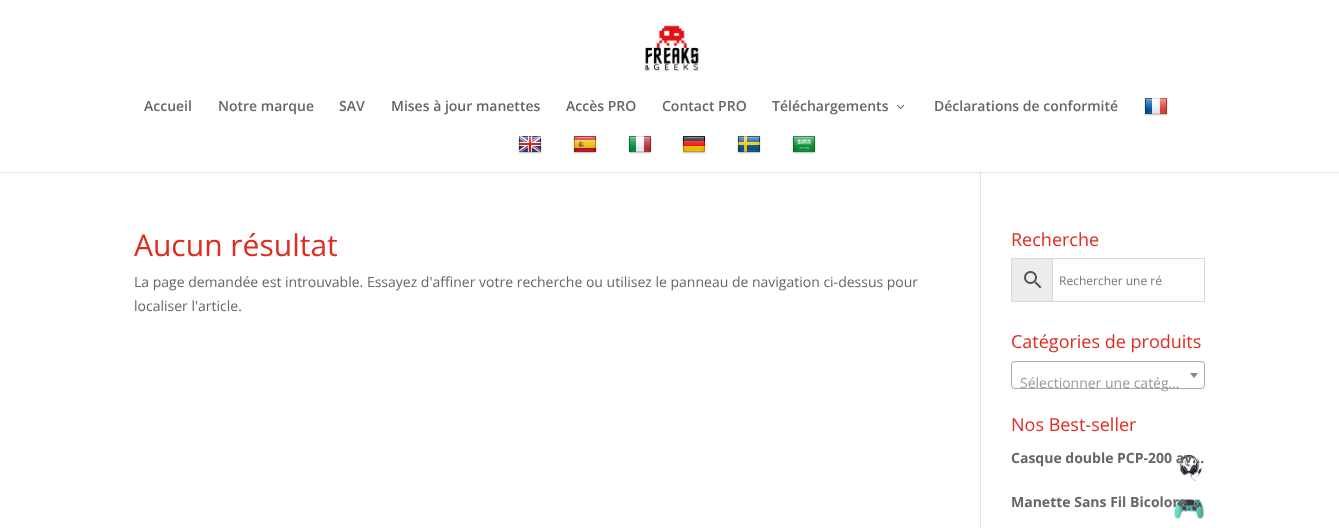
<!DOCTYPE html>
<meta charset="utf-8">
<style>body { margin: 0 } canvas { display: block }</style>
<canvas id="canvas" width="1339" height="528"></canvas>
<img id="img1" src="images/1.png" hidden>
<img id="img2" src="images/2.png" hidden>
<img id="img3" src="images/3.png" hidden>
<img id="img4" src="images/4.png" hidden>
<img id="img5" src="images/5.png" hidden>
<img id="img6" src="images/6.png" hidden>
<img id="img7" src="images/7.png" hidden>
<img id="img8" src="images/8.png" hidden>
<img id="img9" src="images/9.png" hidden>
<img id="img10" src="images/10.png" hidden>
<img id="img11" src="images/11.png" hidden>
<img id="img12" src="images/12.png" hidden>
<script>
window.onload = function () {
    const canvas = document.getElementById('canvas');
    const context = canvas.getContext('2d');
    context.miterLimit = 4;
    context.fontKerning = 'normal';

    context.fillStyle = 'rgb(255, 255, 255)';
    context.fillRect(0, 0, 1339, 528);
    context.fillStyle = 'rgb(230, 230, 230)';
    context.fillRect(0, 172, 1339, 1);
    context.drawImage(document.getElementById('img1'), 644, 25, 55, 46);
    context.drawImage(document.getElementById('img2'), 896, 104, 9, 5);
    context.drawImage(document.getElementById('img3'), 1144, 98, 24, 18);
    context.drawImage(document.getElementById('img4'), 518, 136, 24, 18);
    context.drawImage(document.getElementById('img5'), 573, 136, 24, 18);
    context.drawImage(document.getElementById('img6'), 628, 136, 24, 18);
    context.drawImage(document.getElementById('img7'), 682, 136, 24, 18);
    context.drawImage(document.getElementById('img8'), 737, 136, 24, 18);
    context.drawImage(document.getElementById('img9'), 792, 136, 24, 18);
    context.fillStyle = 'rgb(226, 226, 226)';
    context.fillRect(980, 172, 1, 356);
    context.fillStyle = 'rgb(203, 203, 203)';
    context.fillRect(980, 172, 1, 1);
    context.fillStyle = 'rgb(237, 237, 237)';
    context.beginPath();
    context.rect(1011.5, 258.5, 41, 43);
    context.fill();
    context.strokeStyle = 'rgb(216, 216, 216)';
    context.stroke();
    context.drawImage(document.getElementById('img10'), 1024, 271, 18, 18);
    context.strokeRect(1052.5, 258.5, 152, 43);
    context.beginPath();
    context.roundRect(1011.5, 361.5, 193, 27, 3.5);
    context.strokeStyle = 'rgb(170, 170, 170)';
    context.stroke();
    context.fillStyle = 'rgb(136, 136, 136)';
    context.beginPath();
    context.moveTo(1190, 373);
    context.lineTo(1198, 373);
    context.lineTo(1194, 378);
    context.closePath();
    context.fill();
    context.drawImage(document.getElementById('img11'), 1173, 449, 31, 32);
    context.drawImage(document.getElementById('img12'), 1174, 499, 31, 20);
    context.font = '600 14px Open Sans';
    context.fillStyle = 'rgb(102, 102, 102)';
    context.fillText('Accueil', 144, 111);
    context.fillText('Notre marque', 218, 111);
    context.fillText('SAV', 339, 111);
    context.fillText('Mises à jour manettes', 391, 111);
    context.fillText('Accès PRO', 566, 111);
    context.fillText('Contact PRO', 662, 111);
    context.fillText('Téléchargements', 772, 111);
    context.fillText('Déclarations de conformité', 934, 111);
    context.font = '30px Open Sans';
    context.fillStyle = 'rgb(224, 43, 32)';
    context.fillText('Aucun résultat', 134, 256);
    context.font = '14px Open Sans';
    context.fillStyle = 'rgb(102, 102, 102)';
    context.fillText('La page demandée est introuvable. Essayez d\'affiner votre recherche ou utilisez le panneau de navigation ci-dessus pour', 134, 287);
    context.fillText('localiser l\'article.', 134, 311);
    context.font = '18px Open Sans';
    context.fillStyle = 'rgb(224, 43, 32)';
    context.fillText('Recherche', 1011, 246);
    context.font = '12px Open Sans';
    context.fillStyle = 'rgb(117, 117, 117)';
    context.fillText('Rechercher une ré', 1059, 285);
    context.font = '18px Open Sans';
    context.fillStyle = 'rgb(224, 43, 32)';
    context.fillText('Catégories de produits', 1011, 348);
    context.font = '14px Open Sans';
    context.fillStyle = 'rgb(153, 153, 153)';
    context.fillText('Sélectionner une catég…', 1020, 388);
    context.font = '18px Open Sans';
    context.fillStyle = 'rgb(224, 43, 32)';
    context.fillText('Nos Best-seller', 1011, 431);
    context.font = 'bold 14px Open Sans';
    context.fillStyle = 'rgb(102, 102, 102)';
    context.fillText('Casque double PCP-200 av…', 1011, 463);
    context.fillText('Manette Sans Fil Bicolore …', 1011, 507);
};
</script>
